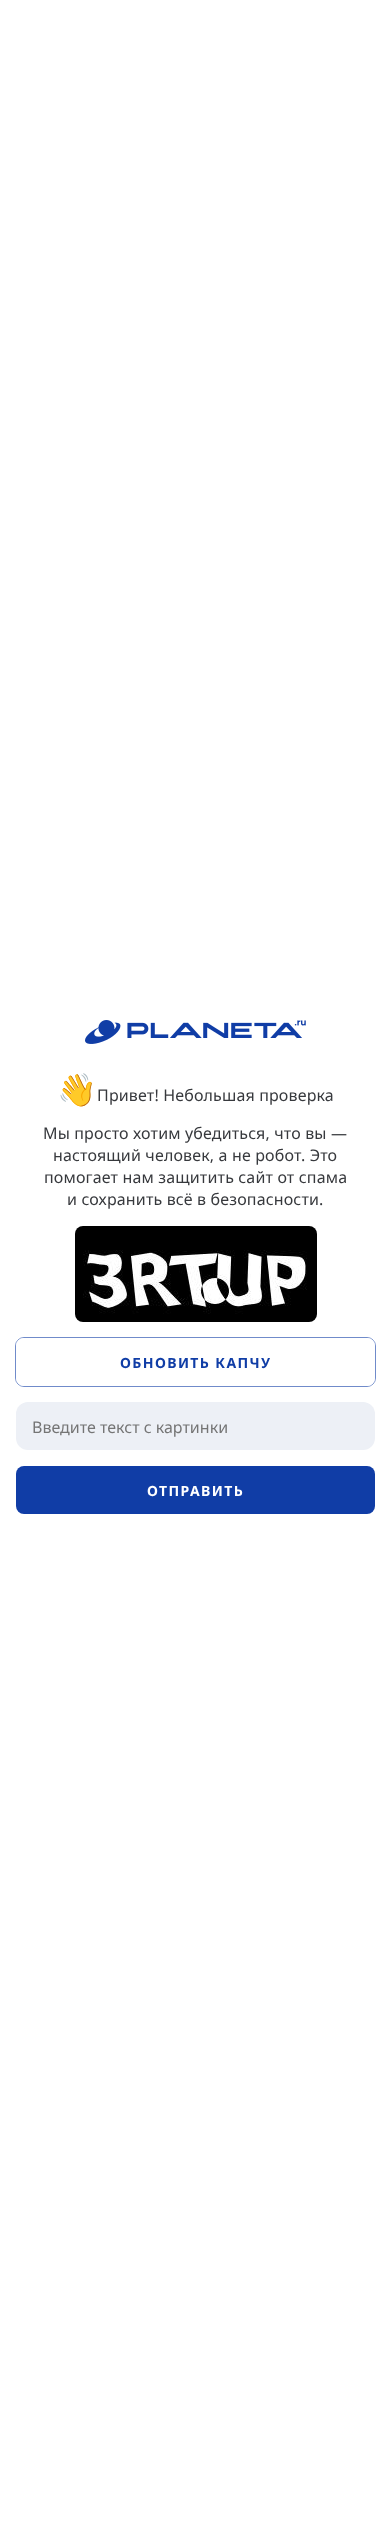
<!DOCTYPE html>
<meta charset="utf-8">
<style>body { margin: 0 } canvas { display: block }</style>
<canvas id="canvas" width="391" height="2529"></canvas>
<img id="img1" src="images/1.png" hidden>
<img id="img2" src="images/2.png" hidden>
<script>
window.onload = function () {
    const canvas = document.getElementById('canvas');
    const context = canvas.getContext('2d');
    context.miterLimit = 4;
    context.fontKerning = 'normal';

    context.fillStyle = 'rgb(255, 255, 255)';
    context.fillRect(0, 0, 391, 2529);
    context.drawImage(document.getElementById('img1'), 85, 1020, 221, 24);
    context.drawImage(document.getElementById('img2'), 75, 1226, 242, 96);
    context.beginPath();
    context.roundRect(15.5, 1337.5, 360, 49, 8.5);
    context.strokeStyle = 'rgb(112, 139, 202)';
    context.stroke();
    context.beginPath();
    context.roundRect(16, 1338, 359, 48, 8);
    context.fill();
    context.fillStyle = 'rgb(237, 240, 246)';
    context.beginPath();
    context.roundRect(16, 1402, 359, 48, 12);
    context.fill();
    context.fillStyle = 'rgb(16, 61, 166)';
    context.beginPath();
    context.roundRect(16, 1466, 359, 48, 8);
    context.fill();
    context.letterSpacing = '0.15px';
    context.font = '32px Noto Color Emoji';
    context.fillStyle = 'rgb(55, 57, 61)';
    context.fillText('👋', 57, 1101);
    context.font = '16px Noto Sans';
    context.fillText('Привет! Небольшая проверка', 97, 1101);
    context.fillText('Мы просто хотим убедиться, что вы —', 43, 1139);
    context.fillText('настоящий человек, а не робот. Это', 53, 1161);
    context.fillText('помогает нам защитить сайт от спама', 44, 1183);
    context.fillText('и сохранить всё в безопасности.', 67, 1205);
    context.letterSpacing = '1.4px';
    context.font = 'bold 14px Noto Sans';
    context.fillStyle = 'rgb(16, 61, 166)';
    context.fillText('ОБНОВИТЬ КАПЧУ', 120, 1368);
    context.letterSpacing = '0px';
    context.font = '16px Noto Sans';
    context.fillStyle = 'rgb(117, 117, 117)';
    context.fillText('Введите текст с картинки', 32, 1433);
    context.letterSpacing = '1.4px';
    context.font = 'bold 14px Noto Sans';
    context.fillStyle = 'rgb(255, 255, 255)';
    context.fillText('ОТПРАВИТЬ', 147, 1496);
};
</script>
